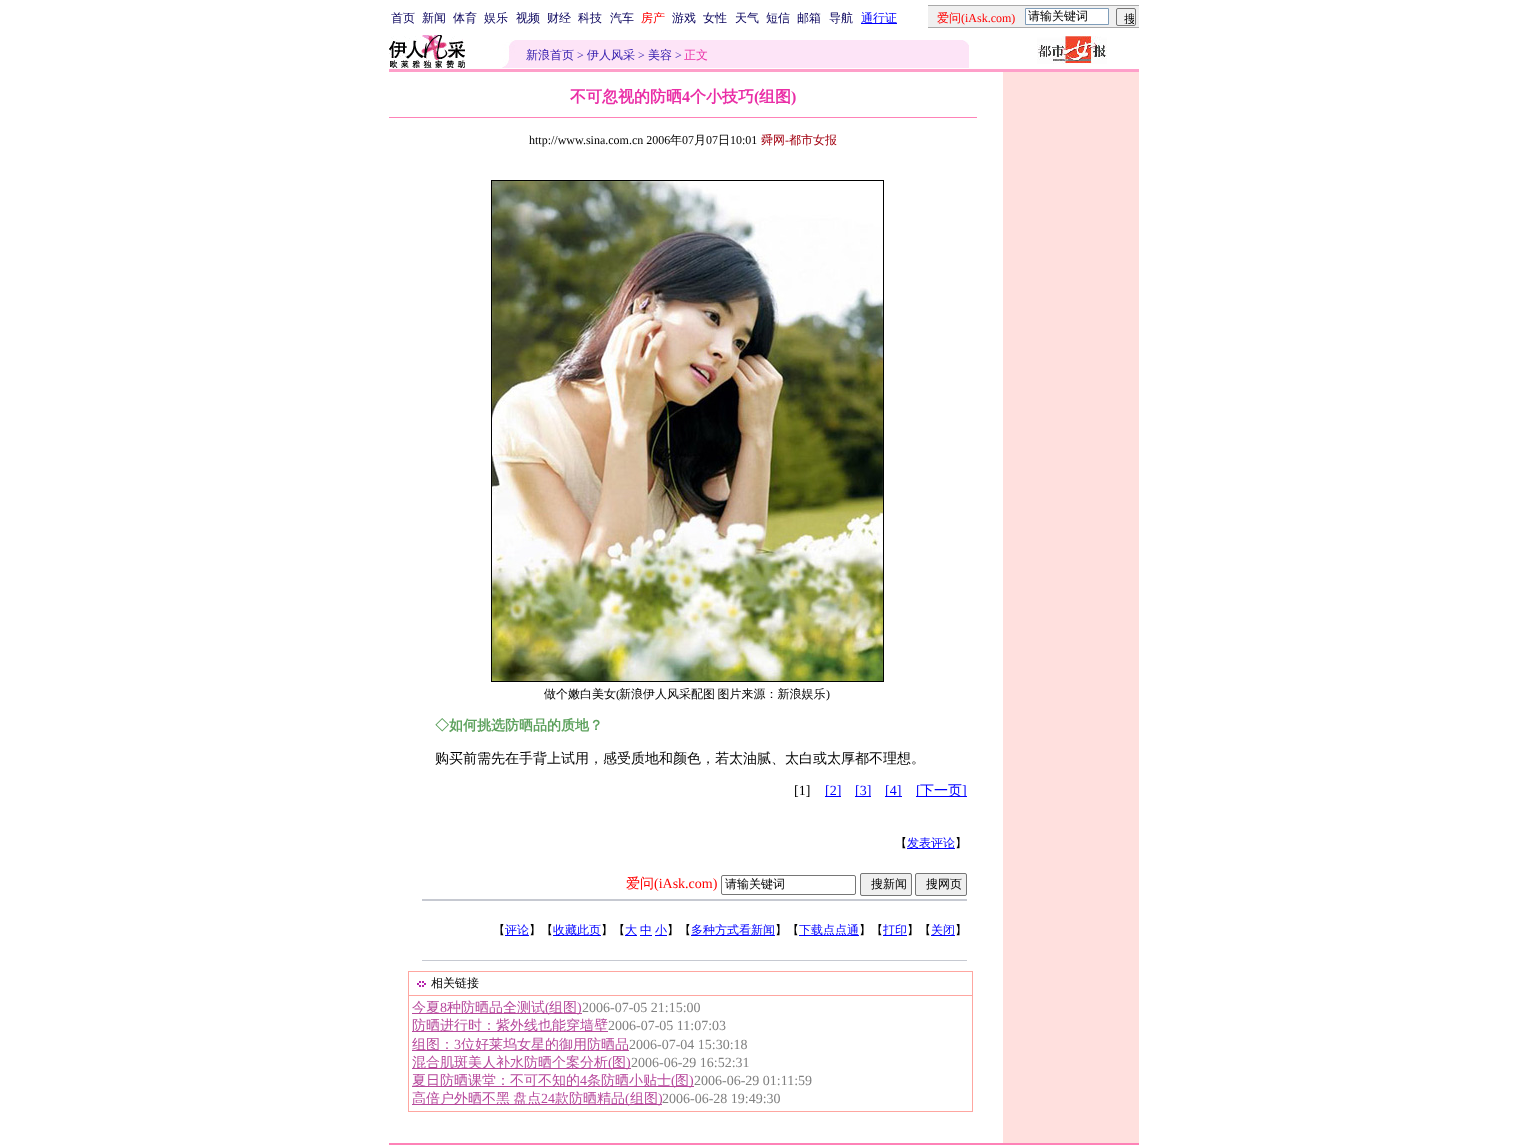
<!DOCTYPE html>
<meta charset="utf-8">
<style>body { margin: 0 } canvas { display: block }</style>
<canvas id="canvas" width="1528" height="1147"></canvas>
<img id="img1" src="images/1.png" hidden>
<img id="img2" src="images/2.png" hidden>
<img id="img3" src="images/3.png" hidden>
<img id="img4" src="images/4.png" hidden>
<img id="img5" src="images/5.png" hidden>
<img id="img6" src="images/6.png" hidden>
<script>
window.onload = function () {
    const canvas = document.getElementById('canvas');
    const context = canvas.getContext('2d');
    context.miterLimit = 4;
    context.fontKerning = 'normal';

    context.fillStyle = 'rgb(255, 255, 255)';
    context.fillRect(0, 0, 1528, 1147);
    context.fillStyle = 'rgb(0, 0, 255)';
    context.fillRect(861, 23, 36, 1);
    context.fillStyle = 'rgb(169, 169, 169)';
    context.fillRect(928, 5, 211, 1);
    context.fillStyle = 'rgb(240, 240, 240)';
    context.fillRect(928, 6, 211, 21);
    context.fillStyle = 'rgb(255, 255, 255)';
    context.beginPath();
    context.rect(1025.5, 8.5, 83, 16);
    context.fill();
    context.strokeStyle = 'rgb(127, 157, 185)';
    context.stroke();
    context.beginPath();
    context.roundRect(1116.5, 8.5, 19, 17, 1.5);
    context.strokeStyle = 'rgb(118, 118, 118)';
    context.stroke();
    context.fillStyle = 'rgb(169, 169, 169)';
    context.fillRect(928, 27, 211, 1);
    context.drawImage(document.getElementById('img1'), 389, 35, 76, 33);
    context.fillStyle = 'rgb(253, 228, 247)';
    context.fillRect(515, 40, 454, 28);
    context.drawImage(document.getElementById('img2'), 502, 40, 13, 28);
    context.drawImage(document.getElementById('img3'), 963, 40, 6, 5);
    context.drawImage(document.getElementById('img4'), 1037, 36, 70, 28);
    context.fillStyle = 'rgb(254, 159, 201)';
    context.fillRect(389, 69, 750, 3);
    context.fillStyle = 'rgb(254, 130, 183)';
    context.fillRect(389, 117, 588, 1);
    context.strokeStyle = 'rgb(0, 0, 0)';
    context.strokeRect(491.5, 180.5, 392, 501);
    context.drawImage(document.getElementById('img5'), 492, 181, 391, 500);
    context.fillStyle = 'rgb(0, 0, 255)';
    context.fillRect(825, 796, 16, 1);
    context.fillRect(855, 796, 16, 1);
    context.fillRect(885, 796, 17, 1);
    context.fillRect(916, 796, 51, 1);
    context.fillRect(907, 848, 48, 1);
    context.fillStyle = 'rgb(198, 201, 209)';
    context.fillRect(422, 899, 545, 2);
    context.beginPath();
    context.roundRect(721.5, 875.5, 134, 19, 1.5);
    context.strokeStyle = 'rgb(118, 118, 118)';
    context.stroke();
    context.fillStyle = 'rgb(239, 239, 239)';
    context.beginPath();
    context.roundRect(860.5, 873.5, 51, 22, 1.5);
    context.fill();
    context.stroke();
    context.beginPath();
    context.roundRect(915.5, 873.5, 51, 22, 1.5);
    context.fill();
    context.stroke();
    context.fillStyle = 'rgb(198, 201, 209)';
    context.fillRect(422, 960, 545, 1);
    context.fillStyle = 'rgb(0, 0, 255)';
    context.fillRect(505, 935, 24, 1);
    context.fillRect(553, 935, 48, 1);
    context.fillRect(625, 935, 12, 1);
    context.fillRect(640, 935, 12, 1);
    context.fillRect(655, 935, 12, 1);
    context.fillRect(691, 935, 84, 1);
    context.fillRect(799, 935, 60, 1);
    context.fillRect(883, 935, 24, 1);
    context.fillRect(931, 935, 24, 1);
    context.fillStyle = 'rgb(254, 166, 160)';
    context.fillRect(408, 971, 565, 141);
    context.fillStyle = 'rgb(255, 255, 255)';
    context.fillRect(409, 972, 563, 23);
    context.drawImage(document.getElementById('img6'), 417, 981, 9, 6);
    context.fillRect(409, 996, 563, 115);
    context.fillStyle = 'rgb(183, 73, 156)';
    context.fillRect(412, 1013, 170, 1);
    context.fillRect(412, 1031, 196, 1);
    context.fillRect(412, 1050, 217, 1);
    context.fillRect(412, 1068, 219, 1);
    context.fillRect(412, 1086, 282, 1);
    context.fillRect(412, 1104, 250, 1);
    context.fillStyle = 'rgb(255, 224, 222)';
    context.fillRect(1003, 72, 136, 1071);
    context.fillStyle = 'rgb(254, 130, 183)';
    context.fillRect(389, 1143, 750, 2);
    context.font = '500 12px WenQuanYi Zen Hei';
    context.fillStyle = 'rgb(7, 1, 91)';
    context.fillText('首页', 391, 22);
    context.fillText('新闻', 422, 22);
    context.fillText('体育', 453, 22);
    context.fillText('娱乐', 484, 22);
    context.fillText('视频', 516, 22);
    context.fillText('财经', 547, 22);
    context.fillText('科技', 578, 22);
    context.fillText('汽车', 610, 22);
    context.fillStyle = 'rgb(255, 0, 0)';
    context.fillText('房产', 641, 22);
    context.fillStyle = 'rgb(7, 1, 91)';
    context.fillText('游戏', 672, 22);
    context.fillText('女性', 703, 22);
    context.fillText('天气', 735, 22);
    context.fillText('短信', 766, 22);
    context.fillText('邮箱', 797, 22);
    context.fillText('导航', 829, 22);
    context.fillStyle = 'rgb(0, 0, 255)';
    context.fillText('通行证', 861, 22);
    context.fillStyle = 'rgb(255, 0, 0)';
    context.fillText('爱问', 937, 22);
    context.font = '12px Liberation Serif';
    context.fillText('(iAsk.com)', 961, 22);
    context.font = '500 12px WenQuanYi Zen Hei';
    context.fillStyle = 'rgb(0, 0, 0)';
    context.fillText('请输关键词', 1028, 20);
    context.save();
    context.beginPath();
    context.rect(1118, 10, 16, 14);
    context.clip();
    context.fillText('搜', 1124, 23);
    context.restore();
    context.fillStyle = 'rgb(49, 27, 173)';
    context.fillText('新浪首页', 526, 59);
    context.font = '12px Liberation Serif';
    context.fillText('>', 577, 59);
    context.font = '500 12px WenQuanYi Zen Hei';
    context.fillText('伊人风采', 587, 59);
    context.font = '12px Liberation Serif';
    context.fillText('>', 638, 59);
    context.font = '500 12px WenQuanYi Zen Hei';
    context.fillText('美容', 648, 59);
    context.font = '12px Liberation Serif';
    context.fillText('>', 675, 59);
    context.font = '500 12px WenQuanYi Zen Hei';
    context.fillStyle = 'rgb(234, 46, 166)';
    context.fillText('正文', 684, 59);
    context.font = 'bold 16px WenQuanYi Zen Hei';
    context.fillText('不可忽视的防晒', 570, 102);
    context.font = 'bold 16px Liberation Serif';
    context.fillText('4', 682, 102);
    context.font = 'bold 16px WenQuanYi Zen Hei';
    context.fillText('个小技巧', 690, 102);
    context.font = 'bold 16px Liberation Serif';
    context.fillText('(', 754, 102);
    context.font = 'bold 16px WenQuanYi Zen Hei';
    context.fillText('组图', 759, 102);
    context.font = 'bold 16px Liberation Serif';
    context.fillText(')', 791, 102);
    context.font = '12px Liberation Serif';
    context.fillStyle = 'rgb(0, 0, 0)';
    context.fillText('http://www.sina.com.cn 2006', 529, 144);
    context.font = '500 12px WenQuanYi Zen Hei';
    context.fillText('年', 670, 144);
    context.font = '12px Liberation Serif';
    context.fillText('07', 682, 144);
    context.font = '500 12px WenQuanYi Zen Hei';
    context.fillText('月', 694, 144);
    context.font = '12px Liberation Serif';
    context.fillText('07', 706, 144);
    context.font = '500 12px WenQuanYi Zen Hei';
    context.fillText('日', 718, 144);
    context.font = '12px Liberation Serif';
    context.fillText('10:01', 730, 144);
    context.font = '500 12px WenQuanYi Zen Hei';
    context.fillStyle = 'rgb(162, 0, 16)';
    context.fillText('舜网', 761, 144);
    context.font = '12px Liberation Serif';
    context.fillText('-', 785, 144);
    context.font = '500 12px WenQuanYi Zen Hei';
    context.fillText('都市女报', 789, 144);
    context.fillStyle = 'rgb(0, 0, 0)';
    context.fillText('做个嫩白美女', 544, 698);
    context.font = '12px Liberation Serif';
    context.fillText('(', 616, 698);
    context.wordSpacing = '-1px';
    context.font = '500 12px WenQuanYi Zen Hei';
    context.fillText('新浪伊人风采配图 图片来源：新浪娱乐', 619, 698);
    context.wordSpacing = '0px';
    context.font = '12px Liberation Serif';
    context.fillText(')', 826, 698);
    context.font = 'bold 14px WenQuanYi Zen Hei';
    context.fillStyle = 'rgb(94, 162, 94)';
    context.fillText('◇如何挑选防晒品的质地？', 435, 730);
    context.font = '500 14px WenQuanYi Zen Hei';
    context.fillStyle = 'rgb(0, 0, 0)';
    context.fillText('购买前需先在手背上试用，感受质地和颜色，若太油腻、太白或太厚都不理想。', 435, 763);
    context.font = '14px Liberation Serif';
    context.fillText('[1]', 794, 795);
    context.fillStyle = 'rgb(0, 0, 255)';
    context.fillText('[2]', 825, 795);
    context.fillText('[3]', 855, 795);
    context.fillText('[4]', 885, 795);
    context.fillText('[', 916, 795);
    context.font = '500 14px WenQuanYi Zen Hei';
    context.fillText('下一页', 920, 795);
    context.font = '14px Liberation Serif';
    context.fillText(']', 962, 795);
    context.font = '500 12px WenQuanYi Zen Hei';
    context.fillStyle = 'rgb(0, 0, 0)';
    context.fillText('【', 895, 847);
    context.fillStyle = 'rgb(0, 0, 255)';
    context.fillText('发表评论', 907, 847);
    context.fillStyle = 'rgb(0, 0, 0)';
    context.fillText('】', 955, 847);
    context.font = '500 14px WenQuanYi Zen Hei';
    context.fillStyle = 'rgb(255, 0, 0)';
    context.fillText('爱问', 626, 888);
    context.font = '14px Liberation Serif';
    context.fillText('(iAsk.com)', 654, 888);
    context.font = '500 12px WenQuanYi Zen Hei';
    context.fillStyle = 'rgb(0, 0, 0)';
    context.fillText('请输关键词', 725, 888);
    context.fillText('搜新闻', 871, 888);
    context.fillText('搜网页', 926, 888);
    context.fillText('【', 493, 934);
    context.fillStyle = 'rgb(0, 0, 255)';
    context.fillText('评论', 505, 934);
    context.fillStyle = 'rgb(0, 0, 0)';
    context.fillText('】【', 529, 934);
    context.fillStyle = 'rgb(0, 0, 255)';
    context.fillText('收藏此页', 553, 934);
    context.fillStyle = 'rgb(0, 0, 0)';
    context.fillText('】【', 601, 934);
    context.fillStyle = 'rgb(0, 0, 255)';
    context.fillText('大', 625, 934);
    context.fillText('中', 640, 934);
    context.fillText('小', 655, 934);
    context.fillStyle = 'rgb(0, 0, 0)';
    context.fillText('】【', 667, 934);
    context.fillStyle = 'rgb(0, 0, 255)';
    context.fillText('多种方式看新闻', 691, 934);
    context.fillStyle = 'rgb(0, 0, 0)';
    context.fillText('】【', 775, 934);
    context.fillStyle = 'rgb(0, 0, 255)';
    context.fillText('下载点点通', 799, 934);
    context.fillStyle = 'rgb(0, 0, 0)';
    context.fillText('】【', 859, 934);
    context.fillStyle = 'rgb(0, 0, 255)';
    context.fillText('打印', 883, 934);
    context.fillStyle = 'rgb(0, 0, 0)';
    context.fillText('】【', 907, 934);
    context.fillStyle = 'rgb(0, 0, 255)';
    context.fillText('关闭', 931, 934);
    context.fillStyle = 'rgb(0, 0, 0)';
    context.fillText('】', 955, 934);
    context.fillText('相关链接', 431, 987);
    context.font = '500 14px WenQuanYi Zen Hei';
    context.fillStyle = 'rgb(183, 73, 156)';
    context.fillText('今夏', 412, 1012);
    context.font = '14px Liberation Serif';
    context.fillText('8', 440, 1012);
    context.font = '500 14px WenQuanYi Zen Hei';
    context.fillText('种防晒品全测试', 447, 1012);
    context.font = '14px Liberation Serif';
    context.fillText('(', 545, 1012);
    context.font = '500 14px WenQuanYi Zen Hei';
    context.fillText('组图', 549, 1012);
    context.font = '14px Liberation Serif';
    context.fillText(')', 577, 1012);
    context.fillStyle = 'rgb(128, 128, 128)';
    context.fillText('2006-07-05 21:15:00', 582, 1012);
    context.font = '500 14px WenQuanYi Zen Hei';
    context.fillStyle = 'rgb(183, 73, 156)';
    context.fillText('防晒进行时：紫外线也能穿墙壁', 412, 1030);
    context.font = '14px Liberation Serif';
    context.fillStyle = 'rgb(128, 128, 128)';
    context.fillText('2006-07-05 11:07:03', 608, 1030);
    context.font = '500 14px WenQuanYi Zen Hei';
    context.fillStyle = 'rgb(183, 73, 156)';
    context.fillText('组图：', 412, 1049);
    context.font = '14px Liberation Serif';
    context.fillText('3', 454, 1049);
    context.font = '500 14px WenQuanYi Zen Hei';
    context.fillText('位好莱坞女星的御用防晒品', 461, 1049);
    context.font = '14px Liberation Serif';
    context.fillStyle = 'rgb(128, 128, 128)';
    context.fillText('2006-07-04 15:30:18', 629, 1049);
    context.font = '500 14px WenQuanYi Zen Hei';
    context.fillStyle = 'rgb(183, 73, 156)';
    context.fillText('混合肌斑美人补水防晒个案分析', 412, 1067);
    context.font = '14px Liberation Serif';
    context.fillText('(', 608, 1067);
    context.font = '500 14px WenQuanYi Zen Hei';
    context.fillText('图', 612, 1067);
    context.font = '14px Liberation Serif';
    context.fillText(')', 626, 1067);
    context.fillStyle = 'rgb(128, 128, 128)';
    context.fillText('2006-06-29 16:52:31', 631, 1067);
    context.font = '500 14px WenQuanYi Zen Hei';
    context.fillStyle = 'rgb(183, 73, 156)';
    context.fillText('夏日防晒课堂：不可不知的', 412, 1085);
    context.font = '14px Liberation Serif';
    context.fillText('4', 580, 1085);
    context.font = '500 14px WenQuanYi Zen Hei';
    context.fillText('条防晒小贴士', 587, 1085);
    context.font = '14px Liberation Serif';
    context.fillText('(', 671, 1085);
    context.font = '500 14px WenQuanYi Zen Hei';
    context.fillText('图', 675, 1085);
    context.font = '14px Liberation Serif';
    context.fillText(')', 689, 1085);
    context.fillStyle = 'rgb(128, 128, 128)';
    context.fillText('2006-06-29 01:11:59', 694, 1085);
    context.wordSpacing = '-1px';
    context.font = '500 14px WenQuanYi Zen Hei';
    context.fillStyle = 'rgb(183, 73, 156)';
    context.fillText('高倍户外晒不黑 盘点', 412, 1103);
    context.wordSpacing = '0px';
    context.font = '14px Liberation Serif';
    context.fillText('24', 541, 1103);
    context.font = '500 14px WenQuanYi Zen Hei';
    context.fillText('款防晒精品', 555, 1103);
    context.font = '14px Liberation Serif';
    context.fillText('(', 625, 1103);
    context.font = '500 14px WenQuanYi Zen Hei';
    context.fillText('组图', 630, 1103);
    context.font = '14px Liberation Serif';
    context.fillText(')', 658, 1103);
    context.fillStyle = 'rgb(128, 128, 128)';
    context.fillText('2006-06-28 19:49:30', 662, 1103);
};
</script>
